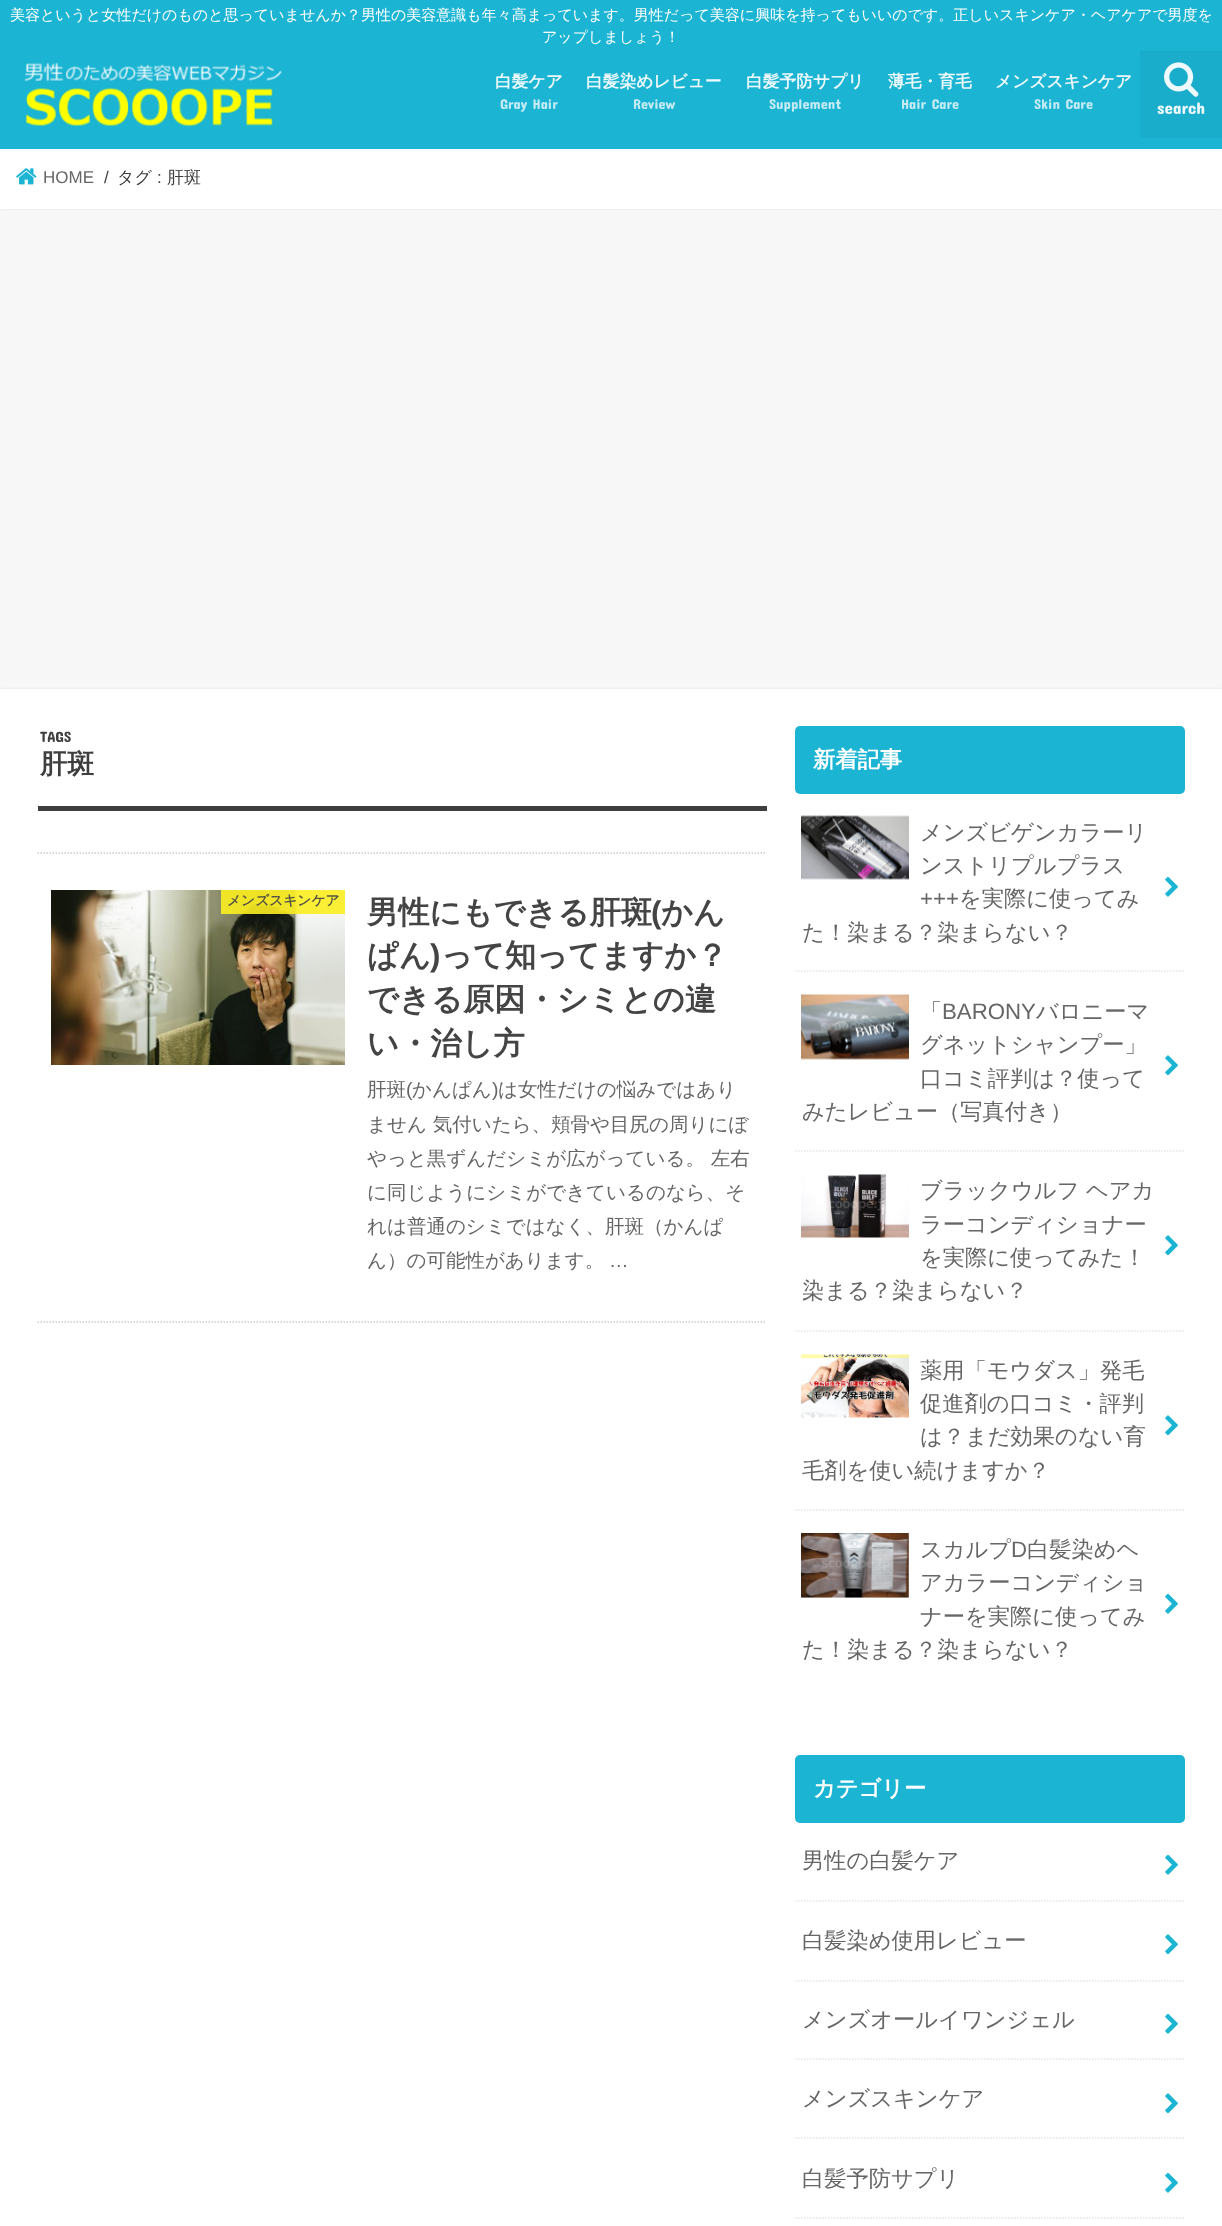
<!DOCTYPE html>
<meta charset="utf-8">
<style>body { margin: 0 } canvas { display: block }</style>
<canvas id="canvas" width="1222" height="2226"></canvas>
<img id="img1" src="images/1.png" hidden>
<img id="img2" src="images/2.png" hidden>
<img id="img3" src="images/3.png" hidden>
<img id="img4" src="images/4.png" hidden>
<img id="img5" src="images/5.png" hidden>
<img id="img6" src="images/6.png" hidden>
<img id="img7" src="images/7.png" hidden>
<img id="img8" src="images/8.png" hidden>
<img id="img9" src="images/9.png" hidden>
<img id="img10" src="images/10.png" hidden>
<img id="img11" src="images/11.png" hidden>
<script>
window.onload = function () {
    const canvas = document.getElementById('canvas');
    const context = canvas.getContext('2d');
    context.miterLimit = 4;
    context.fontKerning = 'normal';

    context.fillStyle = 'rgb(247, 247, 247)';
    context.fillRect(0, 0, 1222, 2226);
    context.fillStyle = 'rgb(27, 180, 211)';
    context.fillRect(0, 0, 1222, 51);
    context.fillStyle = 'rgb(221, 221, 221)';
    context.filter = 'blur(1px)';
    context.beginPath();
    context.rect(0, 149, 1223, 60);
    context.fill();
    context.filter = 'none';
    context.fillStyle = 'rgb(27, 180, 211)';
    context.fillRect(0, 51, 1222, 98);
    context.drawImage(document.getElementById('img1'), 24, 62, 258, 65);
    context.fillStyle = 'rgb(26, 173, 203)';
    context.fillRect(1140, 51, 82, 87);
    context.drawImage(document.getElementById('img2'), 1164, 62, 35, 35);
    context.fillStyle = 'rgb(255, 255, 255)';
    context.fillRect(0, 149, 1222, 60);
    context.drawImage(document.getElementById('img3'), 16, 168, 21, 17);
    context.fillStyle = 'rgb(221, 221, 221)';
    context.filter = 'blur(1px)';
    context.beginPath();
    context.rect(0, 689, 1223, 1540);
    context.fill();
    context.filter = 'none';
    context.fillStyle = 'rgb(255, 255, 255)';
    context.fillRect(0, 689, 1222, 1537);
    context.fillStyle = 'rgb(62, 62, 62)';
    context.fillRect(38, 806, 729, 5);
    context.beginPath();
    context.moveTo(37.5, 853);
    context.lineTo(766.5, 853);
    context.strokeStyle = 'rgb(204, 204, 204)';
    context.lineWidth = 1.5;
    context.setLineDash([1.5, 1.5]);
    context.stroke();
    context.beginPath();
    context.moveTo(37.5, 1322);
    context.lineTo(766.5, 1322);
    context.stroke();
    context.drawImage(document.getElementById('img4'), 51, 890, 294, 175);
    context.fillStyle = 'rgba(252, 238, 33, 0.9)';
    context.fillRect(221, 890, 124, 24);
    context.fillStyle = 'rgb(27, 180, 211)';
    context.beginPath();
    context.roundRect(795, 726, 390, 68, 5);
    context.fill();
    context.beginPath();
    context.moveTo(795, 971);
    context.lineTo(1185, 971);
    context.strokeStyle = 'rgb(229, 229, 229)';
    context.stroke();
    context.drawImage(document.getElementById('img5'), 801, 815, 108, 65);
    context.drawImage(document.getElementById('img6'), 1165, 876, 13, 21);
    context.beginPath();
    context.moveTo(795, 1151);
    context.lineTo(1185, 1151);
    context.stroke();
    context.drawImage(document.getElementById('img7'), 801, 994, 108, 66);
    context.drawImage(document.getElementById('img8'), 1165, 1055, 13, 21);
    context.beginPath();
    context.moveTo(795, 1331);
    context.lineTo(1185, 1331);
    context.stroke();
    context.drawImage(document.getElementById('img9'), 801, 1174, 108, 64);
    context.drawImage(document.getElementById('img8'), 1165, 1235, 13, 21);
    context.beginPath();
    context.moveTo(795, 1510);
    context.lineTo(1185, 1510);
    context.stroke();
    context.drawImage(document.getElementById('img10'), 801, 1354, 108, 64);
    context.drawImage(document.getElementById('img8'), 1165, 1415, 13, 21);
    context.drawImage(document.getElementById('img11'), 801, 1533, 108, 65);
    context.drawImage(document.getElementById('img6'), 1165, 1593, 13, 21);
    context.beginPath();
    context.roundRect(795, 1755, 390, 68, 5);
    context.fill();
    context.beginPath();
    context.moveTo(795, 1901);
    context.lineTo(1185, 1901);
    context.stroke();
    context.drawImage(document.getElementById('img6'), 1165, 1854, 13, 21);
    context.beginPath();
    context.moveTo(795, 1981);
    context.lineTo(1185, 1981);
    context.stroke();
    context.drawImage(document.getElementById('img8'), 1165, 1934, 13, 21);
    context.beginPath();
    context.moveTo(795, 2059);
    context.lineTo(1185, 2059);
    context.stroke();
    context.drawImage(document.getElementById('img6'), 1165, 2013, 13, 21);
    context.beginPath();
    context.moveTo(795, 2138);
    context.lineTo(1185, 2138);
    context.stroke();
    context.drawImage(document.getElementById('img8'), 1165, 2093, 13, 21);
    context.beginPath();
    context.moveTo(795, 2218);
    context.lineTo(1185, 2218);
    context.stroke();
    context.drawImage(document.getElementById('img6'), 1165, 2172, 13, 21);
    context.font = '500 15px WenQuanYi Zen Hei';
    context.fillStyle = 'rgb(255, 255, 255)';
    context.fillText('美容というと女性だけのものと思っていませんか？男性の美容意識も年々高まっています。男性だって美容に興味を持ってもいいのです。正しいスキンケア・ヘアケアで男度を', 10, 20);
    context.fillText('アップしましょう！', 542, 42);
    context.font = 'bold 16.75px WenQuanYi Zen Hei';
    context.fillStyle = 'rgb(237, 249, 252)';
    context.fillText('白髪ケア', 495, 87);
    context.font = '14.25px Concert One';
    context.fillStyle = 'rgb(195, 235, 244)';
    context.fillText('Gray Hair', 500, 109);
    context.font = 'bold 16.75px WenQuanYi Zen Hei';
    context.fillStyle = 'rgb(237, 249, 252)';
    context.fillText('白髪染めレビュー', 586, 87);
    context.font = '14.25px Concert One';
    context.fillStyle = 'rgb(195, 235, 244)';
    context.fillText('Review', 633, 109);
    context.font = 'bold 16.75px WenQuanYi Zen Hei';
    context.fillStyle = 'rgb(237, 249, 252)';
    context.fillText('白髪予防サプリ', 746, 87);
    context.font = '14.25px Concert One';
    context.fillStyle = 'rgb(195, 235, 244)';
    context.fillText('Supplement', 769, 109);
    context.font = 'bold 16.75px WenQuanYi Zen Hei';
    context.fillStyle = 'rgb(237, 249, 252)';
    context.fillText('薄毛・育毛', 888, 87);
    context.font = '14.25px Concert One';
    context.fillStyle = 'rgb(195, 235, 244)';
    context.fillText('Hair Care', 901, 109);
    context.font = 'bold 16.75px WenQuanYi Zen Hei';
    context.fillStyle = 'rgb(237, 249, 252)';
    context.fillText('メンズスキンケア', 995, 87);
    context.font = '14.25px Concert One';
    context.fillStyle = 'rgb(195, 235, 244)';
    context.fillText('Skin Care', 1034, 109);
    context.font = '17px Concert One';
    context.fillStyle = 'rgb(237, 249, 252)';
    context.fillText('search', 1157, 114);
    context.font = '17px Liberation Sans';
    context.fillStyle = 'rgb(102, 102, 102)';
    context.fillText('HOME', 43, 183);
    context.fillStyle = 'rgb(62, 62, 62)';
    context.fillText('/', 104, 183);
    context.font = '500 17px WenQuanYi Zen Hei';
    context.fillText('タグ', 117, 183);
    context.font = '17px Liberation Sans';
    context.fillText(':', 157, 183);
    context.font = '500 17px WenQuanYi Zen Hei';
    context.fillText('肝斑', 167, 183);
    context.font = '15px Concert One';
    context.fillText('TAGS', 40, 742);
    context.font = 'bold 27px WenQuanYi Zen Hei';
    context.fillText('肝斑', 40, 773);
    context.font = 'bold 13.75px WenQuanYi Zen Hei';
    context.fillStyle = 'rgb(86, 84, 66)';
    context.fillText('メンズスキンケア', 227, 905);
    context.font = 'bold 31.25px WenQuanYi Zen Hei';
    context.fillStyle = 'rgb(68, 68, 68)';
    context.fillText('男性にもできる肝斑', 367, 923);
    context.font = 'bold 31.25px Liberation Sans';
    context.fillText('(', 651, 923);
    context.font = 'bold 31.25px WenQuanYi Zen Hei';
    context.fillText('かん', 661, 923);
    context.fillText('ぱん', 367, 966);
    context.font = 'bold 31.25px Liberation Sans';
    context.fillText(')', 430, 966);
    context.font = 'bold 31.25px WenQuanYi Zen Hei';
    context.fillText('って知ってますか？', 441, 966);
    context.fillText('できる原因・シミとの違', 367, 1010);
    context.fillText('い・治し方', 367, 1054);
    context.font = '500 19.5px WenQuanYi Zen Hei';
    context.fillStyle = 'rgb(102, 102, 102)';
    context.fillText('肝斑', 367, 1096);
    context.font = '19.5px Liberation Sans';
    context.fillText('(', 406, 1096);
    context.font = '500 19.5px WenQuanYi Zen Hei';
    context.fillText('かんぱん', 412, 1096);
    context.font = '19.5px Liberation Sans';
    context.fillText(')', 492, 1096);
    context.font = '500 19.5px WenQuanYi Zen Hei';
    context.fillText('は女性だけの悩みではあり', 498, 1096);
    context.fillText('ません 気付いたら、頬骨や目尻の周りにぼ', 367, 1131);
    context.fillText('やっと黒ずんだシミが広がっている。 左右', 367, 1165);
    context.fillText('に同じようにシミができているのなら、そ', 367, 1199);
    context.fillText('れは普通のシミではなく、肝斑（かんぱ', 367, 1233);
    context.fillText('ん）の可能性があります。', 367, 1267);
    context.font = '19.5px Liberation Sans';
    context.fillText('…', 609, 1267);
    context.font = 'bold 22.25px WenQuanYi Zen Hei';
    context.fillStyle = 'rgb(255, 255, 255)';
    context.fillText('新着記事', 813, 767);
    context.font = '500 22.25px WenQuanYi Zen Hei';
    context.fillStyle = 'rgb(102, 102, 102)';
    context.fillText('メンズビゲンカラーリ', 920, 840);
    context.fillText('ンストリプルプラス', 920, 873);
    context.font = '22.25px Liberation Sans';
    context.fillText('+++', 920, 906);
    context.font = '500 22.25px WenQuanYi Zen Hei';
    context.fillText('を実際に使ってみ', 959, 906);
    context.fillText('た！染まる？染まらない？', 802, 940);
    context.fillText('「', 920, 1019);
    context.font = '22.25px Liberation Sans';
    context.fillText('BARONY', 942, 1019);
    context.font = '500 22.25px WenQuanYi Zen Hei';
    context.fillText('バロニーマ', 1036, 1019);
    context.fillText('グネットシャンプー」', 920, 1052);
    context.fillText('口コミ評判は？使って', 920, 1086);
    context.fillText('みたレビュー（写真付き）', 802, 1119);
    context.fillText('ブラックウルフ ヘアカ', 920, 1198);
    context.fillText('ラーコンディショナー', 920, 1232);
    context.fillText('を実際に使ってみた！', 920, 1265);
    context.fillText('染まる？染まらない？', 802, 1298);
    context.fillText('薬用「モウダス」発毛', 920, 1378);
    context.fillText('促進剤の口コミ・評判', 920, 1411);
    context.fillText('は？まだ効果のない育', 920, 1444);
    context.fillText('毛剤を使い続けますか？', 802, 1478);
    context.fillText('スカルプ', 920, 1557);
    context.font = '22.25px Liberation Sans';
    context.fillText('D', 1011, 1557);
    context.font = '500 22.25px WenQuanYi Zen Hei';
    context.fillText('白髪染めヘ', 1027, 1557);
    context.fillText('アカラーコンディショ', 920, 1590);
    context.fillText('ナーを実際に使ってみ', 920, 1624);
    context.fillText('た！染まる？染まらない？', 802, 1657);
    context.font = 'bold 22.25px WenQuanYi Zen Hei';
    context.fillStyle = 'rgb(255, 255, 255)';
    context.fillText('カテゴリー', 813, 1796);
    context.font = '500 22.25px WenQuanYi Zen Hei';
    context.fillStyle = 'rgb(102, 102, 102)';
    context.fillText('男性の白髪ケア', 802, 1868);
    context.fillText('白髪染め使用レビュー', 802, 1948);
    context.fillText('メンズオールイワンジェル', 802, 2027);
    context.fillText('メンズスキンケア', 802, 2106);
    context.fillText('白髪予防サプリ', 802, 2186);
};
</script>
